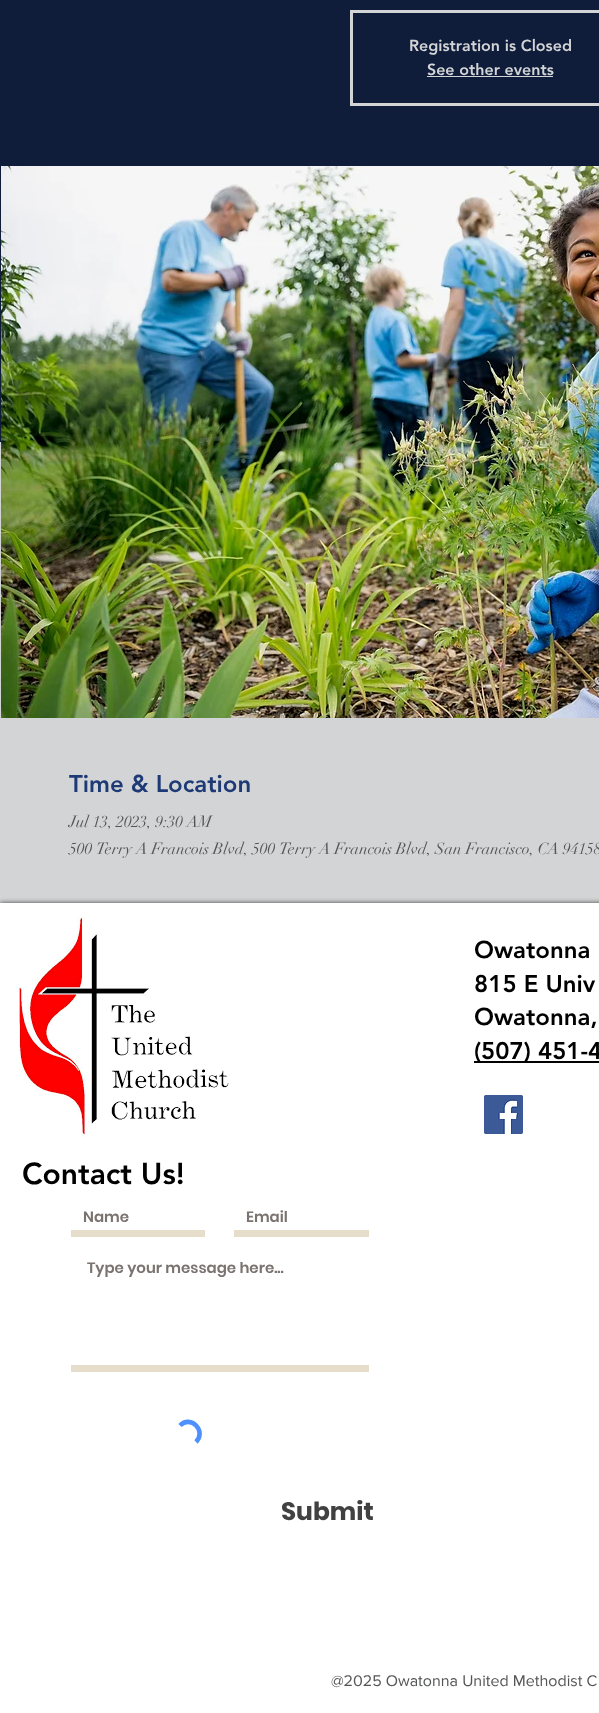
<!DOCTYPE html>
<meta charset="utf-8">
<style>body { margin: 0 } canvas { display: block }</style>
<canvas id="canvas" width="599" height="1713"></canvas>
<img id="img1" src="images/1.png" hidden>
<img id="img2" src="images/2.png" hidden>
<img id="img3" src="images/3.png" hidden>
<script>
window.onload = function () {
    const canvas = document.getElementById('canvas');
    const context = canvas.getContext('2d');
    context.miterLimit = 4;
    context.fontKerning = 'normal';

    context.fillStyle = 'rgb(211, 212, 213)';
    context.fillRect(0, 0, 599, 1713);
    context.fillStyle = 'rgb(15, 29, 59)';
    context.fillRect(0, 0, 599, 442);
    context.strokeStyle = 'rgb(211, 212, 213)';
    context.lineWidth = 3;
    context.strokeRect(351.5, 11.5, 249, 93);
    context.fillStyle = 'rgb(211, 212, 213)';
    context.fillRect(427, 76, 126, 1);
    context.drawImage(document.getElementById('img1'), 1, 166, 598, 552);
    context.fillStyle = 'rgba(0, 0, 0, 0.7)';
    context.filter = 'blur(2.5px)';
    context.beginPath();
    context.rect(0, 903, 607, 810);
    context.fill();
    context.filter = 'none';
    context.fillStyle = 'rgb(255, 255, 255)';
    context.fillRect(0, 903, 599, 810);
    context.drawImage(document.getElementById('img2'), 17, 917, 212, 221);
    context.fillStyle = 'rgb(0, 0, 0)';
    context.fillRect(474, 1061, 125, 2);
    context.drawImage(document.getElementById('img3'), 484, 1095, 39, 39);
    context.fillStyle = 'rgb(230, 222, 202)';
    context.fillRect(71, 1230, 134, 7);
    context.fillRect(234, 1230, 135, 7);
    context.fillRect(71, 1365, 298, 7);
    context.beginPath();
    context.moveTo(180, 1425.5);
    context.bezierCurveTo(190.5, 1414.5, 207, 1431, 196, 1442);
    context.strokeStyle = 'rgb(77, 144, 254)';
    context.lineWidth = 4.6;
    context.stroke();
    context.font = '900 16px "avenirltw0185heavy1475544"';
    context.fillStyle = 'rgb(211, 212, 213)';
    context.fillText('Registration is Closed', 409, 51);
    context.fillText('See other events', 427, 75);
    context.font = '900 24px "avenirltw0185heavy1475544"';
    context.fillStyle = 'rgb(30, 58, 118)';
    context.fillText('Time & Location', 69, 792);
    context.font = '16px didot';
    context.fillStyle = 'rgb(84, 85, 85)';
    context.fillText('Jul 13, 2023, 9:30 AM', 69, 827);
    context.fillText('500 Terry A Francois Blvd, 500 Terry A Francois Blvd, San Francisco, CA 94158,', 69, 854);
    context.font = '900 24px "avenirltw0185heavy1475544"';
    context.fillStyle = 'rgb(0, 0, 0)';
    context.fillText('Owatonna', 474, 958);
    context.fillText('815 E Univ', 474, 992);
    context.fillText('Owatonna,', 474, 1025);
    context.fillText('(507) 451-4', 474, 1059);
    context.font = '900 30px "avenirltw0185heavy1475544"';
    context.fillText('Contact Us!', 22, 1184);
    context.font = '600 15px Poppins';
    context.fillStyle = 'rgb(122, 115, 111)';
    context.fillText('Name', 83, 1222);
    context.fillText('Email', 246, 1222);
    context.fillText('Type your message here...', 87, 1273);
    context.font = 'bold 25px Poppins';
    context.fillStyle = 'rgb(65, 65, 65)';
    context.fillText('Submit', 281, 1520);
    context.font = '16px "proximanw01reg"';
    context.fillStyle = 'rgb(84, 85, 85)';
    context.fillText('@2025 Owatonna United Methodist C', 331, 1686);
};
</script>
